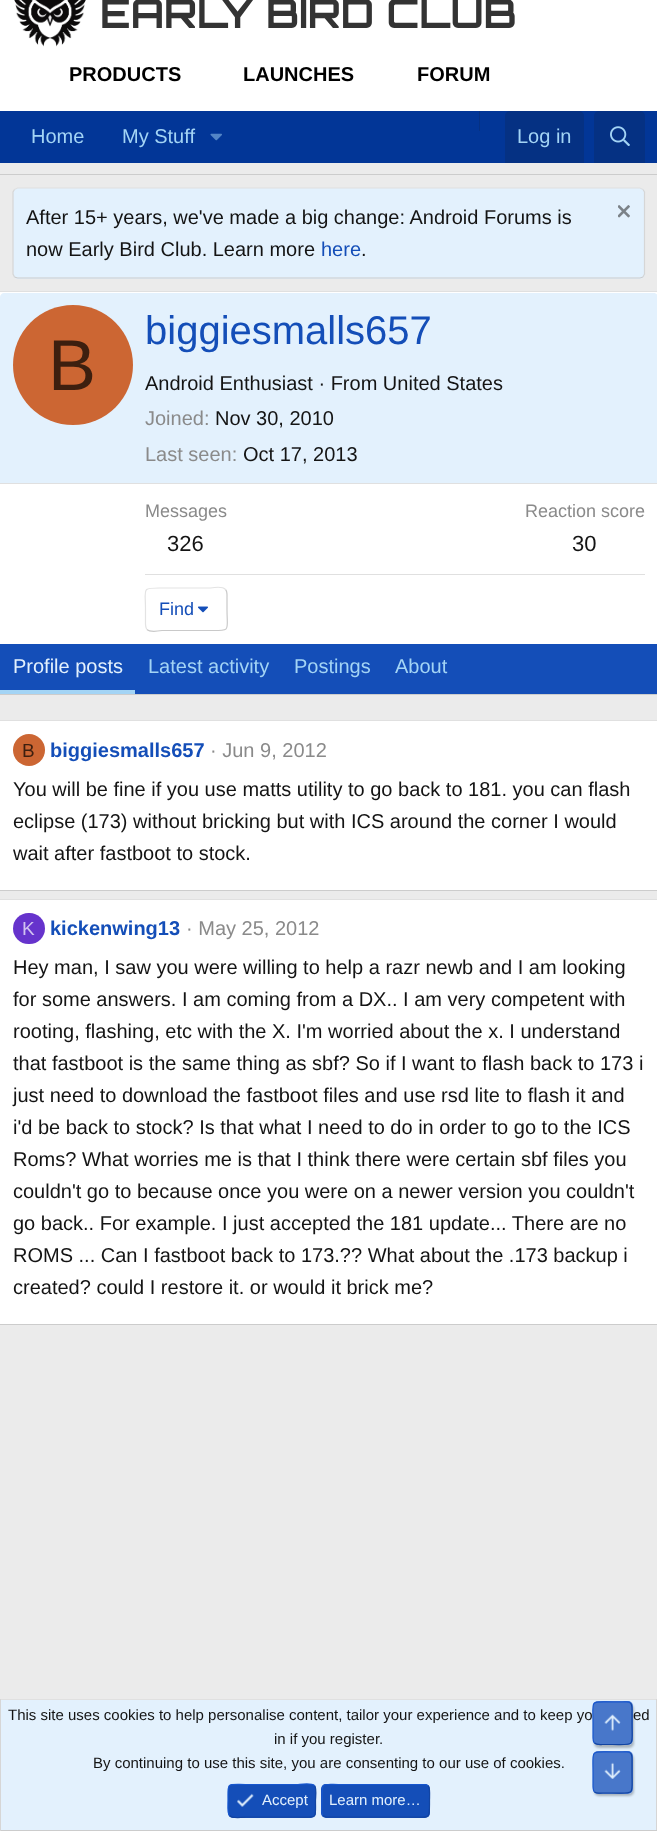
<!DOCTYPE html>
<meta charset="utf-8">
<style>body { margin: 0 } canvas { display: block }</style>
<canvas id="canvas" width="657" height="1831"></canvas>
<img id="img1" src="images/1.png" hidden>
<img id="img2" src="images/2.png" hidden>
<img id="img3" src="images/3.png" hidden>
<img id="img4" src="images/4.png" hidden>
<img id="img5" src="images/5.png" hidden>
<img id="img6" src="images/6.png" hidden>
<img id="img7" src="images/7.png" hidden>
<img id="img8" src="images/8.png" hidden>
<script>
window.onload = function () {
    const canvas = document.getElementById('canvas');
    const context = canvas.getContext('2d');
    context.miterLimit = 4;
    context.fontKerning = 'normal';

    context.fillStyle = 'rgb(235, 235, 235)';
    context.fillRect(0, 0, 657, 1831);
    context.fillStyle = 'rgb(255, 255, 255)';
    context.fillRect(0, 0, 657, 111);
    context.drawImage(document.getElementById('img1'), 14, 0, 72, 47);
    context.fillStyle = 'rgb(2, 54, 151)';
    context.fillRect(0, 111, 657, 52);
    context.drawImage(document.getElementById('img2'), 210, 133, 12, 8);
    context.fillStyle = 'rgb(5, 49, 131)';
    context.fillRect(479, 111, 1, 20);
    context.beginPath();
    context.roundRect(505, 111, 79, 52, [5, 5, 0, 0]);
    context.fill();
    context.beginPath();
    context.roundRect(594, 111, 51, 52, [5, 5, 0, 0]);
    context.fill();
    context.drawImage(document.getElementById('img3'), 610, 126, 20, 20);
    context.fillStyle = 'rgb(204, 204, 204)';
    context.fillRect(0, 174, 657, 1);
    context.fillStyle = 'rgb(227, 241, 253)';
    context.beginPath();
    context.roundRect(13, 188, 632, 91, 5);
    context.fill();
    context.beginPath();
    context.moveTo(14.5, 189.5);
    context.lineTo(17.5, 188);
    context.lineTo(640, 188);
    context.lineTo(643, 189.5);
    context.strokeStyle = 'rgb(224, 224, 224)';
    context.lineWidth = 1.2;
    context.stroke();
    context.beginPath();
    context.moveTo(643, 189.5);
    context.lineTo(644.5, 192);
    context.lineTo(644.5, 274);
    context.lineTo(643, 277);
    context.strokeStyle = 'rgb(214, 214, 214)';
    context.stroke();
    context.beginPath();
    context.moveTo(643, 277);
    context.lineTo(640, 278);
    context.lineTo(17.5, 278);
    context.lineTo(14.5, 277);
    context.strokeStyle = 'rgb(204, 204, 204)';
    context.stroke();
    context.beginPath();
    context.moveTo(14.5, 277);
    context.lineTo(13, 274);
    context.lineTo(13, 192);
    context.lineTo(14.5, 189.5);
    context.strokeStyle = 'rgb(214, 214, 214)';
    context.stroke();
    context.drawImage(document.getElementById('img4'), 618, 205, 12, 13);
    context.fillStyle = 'rgb(255, 255, 255)';
    context.fillRect(0, 292, 657, 352);
    context.fillStyle = 'rgb(224, 224, 224)';
    context.fillRect(0, 291, 657, 1);
    context.fillStyle = 'rgb(204, 204, 204)';
    context.fillRect(0, 694, 657, 1);
    context.fillStyle = 'rgb(227, 241, 253)';
    context.beginPath();
    context.moveTo(4, 293);
    context.lineTo(654, 293);
    context.bezierCurveTo(656, 293, 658, 295, 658, 297);
    context.lineTo(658, 484);
    context.lineTo(0, 484);
    context.lineTo(0, 297);
    context.bezierCurveTo(0, 295, 2, 293, 4, 293);
    context.closePath();
    context.fill();
    context.fillStyle = 'rgb(224, 224, 224)';
    context.fillRect(0, 483, 657, 1);
    context.fillStyle = 'rgb(204, 102, 51)';
    context.beginPath();
    context.arc(73, 365, 60, 0, 2 * Math.PI);
    context.fill();
    context.fillStyle = 'rgb(224, 224, 224)';
    context.fillRect(145, 574, 500, 1);
    context.beginPath();
    context.moveTo(225.5, 589.5);
    context.bezierCurveTo(227.5, 591.5, 227, 595.5, 227, 598);
    context.lineTo(227, 609.5);
    context.bezierCurveTo(227, 631.5, 231.5, 630.5, 210.5, 630.5);
    context.lineTo(162, 630.5);
    context.bezierCurveTo(162, 630.5, 150, 632.5, 147, 629.5);
    context.strokeStyle = 'rgb(201, 201, 201)';
    context.stroke();
    context.beginPath();
    context.moveTo(147, 629.5);
    context.bezierCurveTo(145, 627, 145.5, 623, 145.5, 620.5);
    context.lineTo(145.5, 609.5);
    context.bezierCurveTo(145.5, 587, 141, 588, 162, 588);
    context.lineTo(210.5, 588);
    context.bezierCurveTo(210.5, 588, 222.5, 586, 225.5, 589.5);
    context.strokeStyle = 'rgb(227, 227, 227)';
    context.stroke();
    context.drawImage(document.getElementById('img5'), 198, 606, 10, 7);
    context.fillStyle = 'rgb(20, 78, 184)';
    context.fillRect(0, 644, 657, 50);
    context.fillStyle = 'rgb(163, 212, 245)';
    context.fillRect(0, 690, 135, 4);
    context.fillStyle = 'rgb(255, 255, 255)';
    context.fillRect(0, 721, 657, 169);
    context.fillStyle = 'rgb(224, 224, 224)';
    context.fillRect(0, 720, 657, 1);
    context.fillStyle = 'rgb(204, 204, 204)';
    context.fillRect(0, 890, 657, 1);
    context.fillStyle = 'rgb(204, 102, 51)';
    context.beginPath();
    context.arc(29, 750, 16, 0, 2 * Math.PI);
    context.fill();
    context.fillStyle = 'rgb(255, 255, 255)';
    context.fillRect(0, 900, 657, 424);
    context.fillStyle = 'rgb(224, 224, 224)';
    context.fillRect(0, 899, 657, 1);
    context.fillStyle = 'rgb(204, 204, 204)';
    context.fillRect(0, 1324, 657, 1);
    context.fillStyle = 'rgb(102, 51, 204)';
    context.beginPath();
    context.roundRect(13, 913, 32, 31, 15.5);
    context.fill();
    context.fillStyle = 'rgb(227, 241, 253)';
    context.fillRect(1, 1700, 655, 130);
    context.save();
    context.beginPath();
    context.moveTo(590, 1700);
    context.lineTo(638, 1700);
    context.lineTo(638, 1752);
    context.lineTo(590, 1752);
    context.closePath();
    context.moveTo(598, 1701);
    context.lineTo(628, 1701);
    context.bezierCurveTo(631, 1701, 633, 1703, 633, 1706);
    context.lineTo(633, 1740);
    context.bezierCurveTo(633, 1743, 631, 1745, 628, 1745);
    context.lineTo(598, 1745);
    context.bezierCurveTo(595, 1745, 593, 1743, 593, 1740);
    context.lineTo(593, 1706);
    context.bezierCurveTo(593, 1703, 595, 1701, 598, 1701);
    context.closePath();
    context.clip('evenodd');
    context.fillStyle = 'rgba(0, 0, 0, 0.25)';
    context.filter = 'blur(1px)';
    context.beginPath();
    context.roundRect(594, 1704, 40, 44, 5);
    context.fill();
    context.filter = 'none';
    context.restore();
    context.fillStyle = 'rgba(20, 78, 184, 0.75)';
    context.beginPath();
    context.roundRect(593, 1701, 40, 44, 5);
    context.fill();
    context.beginPath();
    context.moveTo(630.5, 1703);
    context.bezierCurveTo(632.5, 1705.5, 632, 1709.5, 632, 1712);
    context.lineTo(632, 1723);
    context.bezierCurveTo(632, 1747, 636, 1744.5, 612.5, 1744.5);
    context.lineTo(602.5, 1744.5);
    context.bezierCurveTo(600, 1744.5, 596.5, 1745, 594.5, 1743);
    context.strokeStyle = 'rgb(18, 68, 161)';
    context.stroke();
    context.beginPath();
    context.moveTo(594.5, 1743);
    context.bezierCurveTo(592.5, 1741, 593, 1737, 593, 1734.5);
    context.lineTo(593, 1723);
    context.bezierCurveTo(593, 1699, 589, 1702, 612.5, 1702);
    context.lineTo(622.5, 1702);
    context.bezierCurveTo(625, 1702, 628.5, 1701, 630.5, 1703);
    context.strokeStyle = 'rgb(23, 87, 207)';
    context.stroke();
    context.drawImage(document.getElementById('img6'), 604, 1714, 17, 17);
    context.save();
    context.beginPath();
    context.moveTo(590, 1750);
    context.lineTo(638, 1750);
    context.lineTo(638, 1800);
    context.lineTo(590, 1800);
    context.closePath();
    context.moveTo(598, 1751);
    context.lineTo(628, 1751);
    context.bezierCurveTo(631, 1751, 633, 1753, 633, 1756);
    context.lineTo(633, 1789);
    context.bezierCurveTo(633, 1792, 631, 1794, 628, 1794);
    context.lineTo(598, 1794);
    context.bezierCurveTo(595, 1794, 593, 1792, 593, 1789);
    context.lineTo(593, 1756);
    context.bezierCurveTo(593, 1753, 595, 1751, 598, 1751);
    context.closePath();
    context.clip('evenodd');
    context.fillStyle = 'rgba(0, 0, 0, 0.25)';
    context.filter = 'blur(1px)';
    context.beginPath();
    context.roundRect(594, 1754, 40, 42, 5);
    context.fill();
    context.filter = 'none';
    context.restore();
    context.beginPath();
    context.roundRect(593, 1751, 40, 43, 5);
    context.fill();
    context.beginPath();
    context.moveTo(630.5, 1753);
    context.bezierCurveTo(632.5, 1755.5, 632, 1759.5, 632, 1761.5);
    context.lineTo(632, 1772.5);
    context.bezierCurveTo(632, 1796, 635.5, 1793, 612.5, 1793);
    context.lineTo(602.5, 1793);
    context.bezierCurveTo(600, 1793, 596.5, 1794, 594.5, 1792);
    context.strokeStyle = 'rgb(18, 68, 161)';
    context.stroke();
    context.beginPath();
    context.moveTo(594.5, 1792);
    context.bezierCurveTo(592.5, 1789.5, 593, 1785.5, 593, 1783.5);
    context.lineTo(593, 1772.5);
    context.bezierCurveTo(593, 1749, 589.5, 1752, 612.5, 1752);
    context.lineTo(622.5, 1752);
    context.bezierCurveTo(625, 1752, 628.5, 1751, 630.5, 1753);
    context.strokeStyle = 'rgb(23, 87, 207)';
    context.stroke();
    context.drawImage(document.getElementById('img7'), 604, 1762, 17, 17);
    context.fillStyle = 'rgb(224, 224, 224)';
    context.fillRect(0, 1699, 657, 1);
    context.fillStyle = 'rgb(214, 214, 214)';
    context.fillRect(656, 1699, 1, 132);
    context.fillStyle = 'rgb(204, 204, 204)';
    context.fillRect(0, 1830, 657, 1);
    context.fillStyle = 'rgb(214, 214, 214)';
    context.fillRect(0, 1699, 1, 132);
    context.fillStyle = 'rgb(20, 78, 184)';
    context.beginPath();
    context.roundRect(228, 1784, 88, 34, 5);
    context.fill();
    context.beginPath();
    context.moveTo(314.5, 1785.5);
    context.bezierCurveTo(317, 1788.5, 315.5, 1797.5, 315.5, 1800.5);
    context.bezierCurveTo(315.5, 1819.5, 318, 1817, 298, 1817);
    context.lineTo(245.5, 1817);
    context.bezierCurveTo(244.5, 1817, 232.5, 1819, 229.5, 1815.5);
    context.strokeStyle = 'rgb(18, 68, 161)';
    context.stroke();
    context.beginPath();
    context.moveTo(229.5, 1815.5);
    context.bezierCurveTo(227, 1813, 228, 1804, 228, 1800.5);
    context.bezierCurveTo(228, 1782, 226, 1784.5, 245.5, 1784.5);
    context.lineTo(298, 1784.5);
    context.bezierCurveTo(299.5, 1784.5, 311, 1782.5, 314.5, 1785.5);
    context.strokeStyle = 'rgb(23, 87, 207)';
    context.stroke();
    context.drawImage(document.getElementById('img8'), 237, 1793, 17, 14);
    context.beginPath();
    context.roundRect(321, 1784, 109, 34, 5);
    context.fill();
    context.beginPath();
    context.moveTo(428, 1785.5);
    context.bezierCurveTo(430.5, 1788.5, 429.5, 1797.5, 429.5, 1800.5);
    context.bezierCurveTo(429.5, 1820.5, 431, 1817, 408.5, 1817);
    context.lineTo(326, 1817);
    context.lineTo(323, 1815.5);
    context.strokeStyle = 'rgb(18, 68, 161)';
    context.stroke();
    context.beginPath();
    context.moveTo(323, 1815.5);
    context.bezierCurveTo(320.5, 1813, 322, 1804, 322, 1800.5);
    context.bezierCurveTo(322, 1780.5, 320.5, 1784.5, 342.5, 1784.5);
    context.lineTo(425, 1784.5);
    context.lineTo(428, 1785.5);
    context.strokeStyle = 'rgb(23, 87, 207)';
    context.stroke();
    context.font = 'bold 40px Orbitron';
    context.fillStyle = 'rgb(51, 51, 51)';
    context.fillText('EARLY BIRD CLUB', 100, 28);
    context.font = 'bold 20px Liberation Sans';
    context.fillStyle = 'rgb(0, 0, 0)';
    context.fillText('PRODUCTS', 69, 81);
    context.fillText('LAUNCHES', 243, 81);
    context.fillText('FORUM', 417, 81);
    context.font = '20px Liberation Sans';
    context.fillStyle = 'rgb(163, 212, 245)';
    context.fillText('Home', 31, 143);
    context.fillText('My Stuff', 122, 143);
    context.fillText('Log in', 517, 143);
    context.fillStyle = 'rgb(20, 20, 20)';
    context.fillText('After 15+ years, we\'ve made a big change: Android Forums is', 26, 224);
    context.fillText('now Early Bird Club. Learn more', 26, 256);
    context.fillStyle = 'rgb(20, 78, 184)';
    context.fillText('here', 321, 256);
    context.fillStyle = 'rgb(20, 20, 20)';
    context.fillText('.', 361, 256);
    context.font = '72px Liberation Sans';
    context.fillStyle = 'rgb(61, 31, 15)';
    context.fillText('B', 48, 390);
    context.font = '40px Liberation Sans';
    context.fillStyle = 'rgb(20, 78, 184)';
    context.fillText('biggiesmalls657', 145, 344);
    context.font = '20px Liberation Sans';
    context.fillStyle = 'rgb(20, 20, 20)';
    context.fillText('Android Enthusiast · From United States', 145, 390);
    context.fillStyle = 'rgb(138, 138, 138)';
    context.fillText('Joined:', 145, 425);
    context.fillStyle = 'rgb(20, 20, 20)';
    context.fillText('Nov 30, 2010', 215, 425);
    context.fillStyle = 'rgb(138, 138, 138)';
    context.fillText('Last seen:', 145, 461);
    context.fillStyle = 'rgb(20, 20, 20)';
    context.fillText('Oct 17, 2013', 243, 461);
    context.font = '18px Liberation Sans';
    context.fillStyle = 'rgb(138, 138, 138)';
    context.fillText('Messages', 145, 517);
    context.font = '22px Liberation Sans';
    context.fillStyle = 'rgb(20, 20, 20)';
    context.fillText('326', 167, 551);
    context.font = '18px Liberation Sans';
    context.fillStyle = 'rgb(138, 138, 138)';
    context.fillText('Reaction score', 525, 517);
    context.font = '22px Liberation Sans';
    context.fillStyle = 'rgb(20, 20, 20)';
    context.fillText('30', 572, 551);
    context.font = '18px Liberation Sans';
    context.fillStyle = 'rgb(20, 78, 184)';
    context.fillText('Find', 159, 615);
    context.font = '20px Liberation Sans';
    context.fillStyle = 'rgb(227, 241, 253)';
    context.fillText('Profile posts', 13, 673);
    context.fillStyle = 'rgb(163, 212, 245)';
    context.fillText('Latest activity', 148, 673);
    context.fillText('Postings', 294, 673);
    context.fillText('About', 395, 673);
    context.font = '19px Liberation Sans';
    context.fillStyle = 'rgb(61, 31, 15)';
    context.fillText('B', 22, 757);
    context.font = 'bold 20px Liberation Sans';
    context.fillStyle = 'rgb(20, 78, 184)';
    context.fillText('biggiesmalls657', 50, 757);
    context.font = '20px Liberation Sans';
    context.fillStyle = 'rgb(138, 138, 138)';
    context.fillText('· Jun 9, 2012', 210, 757);
    context.fillStyle = 'rgb(20, 20, 20)';
    context.fillText('You will be fine if you use matts utility to go back to 181. you can flash', 13, 796);
    context.fillText('eclipse (173) without bricking but with ICS around the corner I would', 13, 828);
    context.fillText('wait after fastboot to stock.', 13, 860);
    context.font = '19px Liberation Sans';
    context.fillStyle = 'rgb(209, 194, 240)';
    context.fillText('K', 22, 935);
    context.font = 'bold 20px Liberation Sans';
    context.fillStyle = 'rgb(20, 78, 184)';
    context.fillText('kickenwing13', 50, 935);
    context.font = '20px Liberation Sans';
    context.fillStyle = 'rgb(138, 138, 138)';
    context.fillText('· May 25, 2012', 186, 935);
    context.fillStyle = 'rgb(20, 20, 20)';
    context.fillText('Hey man, I saw you were willing to help a razr newb and I am looking', 13, 974);
    context.fillText('for some answers. I am coming from a DX.. I am very competent with', 13, 1006);
    context.fillText('rooting, flashing, etc with the X. I\'m worried about the x. I understand', 13, 1038);
    context.fillText('that fastboot is the same thing as sbf? So if I want to flash back to 173 i', 13, 1070);
    context.fillText('just need to download the fastboot files and use rsd lite to flash it and', 13, 1102);
    context.fillText('i\'d be back to stock? Is that what I need to do in order to go to the ICS', 13, 1134);
    context.fillText('Roms? What worries me is that I think there were certain sbf files you', 13, 1166);
    context.fillText('couldn\'t go to because once you were on a newer version you couldn\'t', 13, 1198);
    context.fillText('go back.. For example. I just accepted the 181 update... There are no', 13, 1230);
    context.fillText('ROMS ... Can I fastboot back to 173.?? What about the .173 backup i', 13, 1262);
    context.fillText('created? could I restore it. or would it brick me?', 13, 1294);
    context.font = '15px Liberation Sans';
    context.fillText('This site uses cookies to help personalise content, tailor your experience and to keep yo', 8, 1720);
    context.fillText('ed', 633, 1720);
    context.fillText('in if you register.', 274, 1744);
    context.fillText('By continuing to use this site, you are consenting to our use of cookies.', 93, 1768);
    context.fillStyle = 'rgb(227, 241, 253)';
    context.fillText('Accept', 262, 1805);
    context.fillText('Learn more…', 329, 1805);
};
</script>
